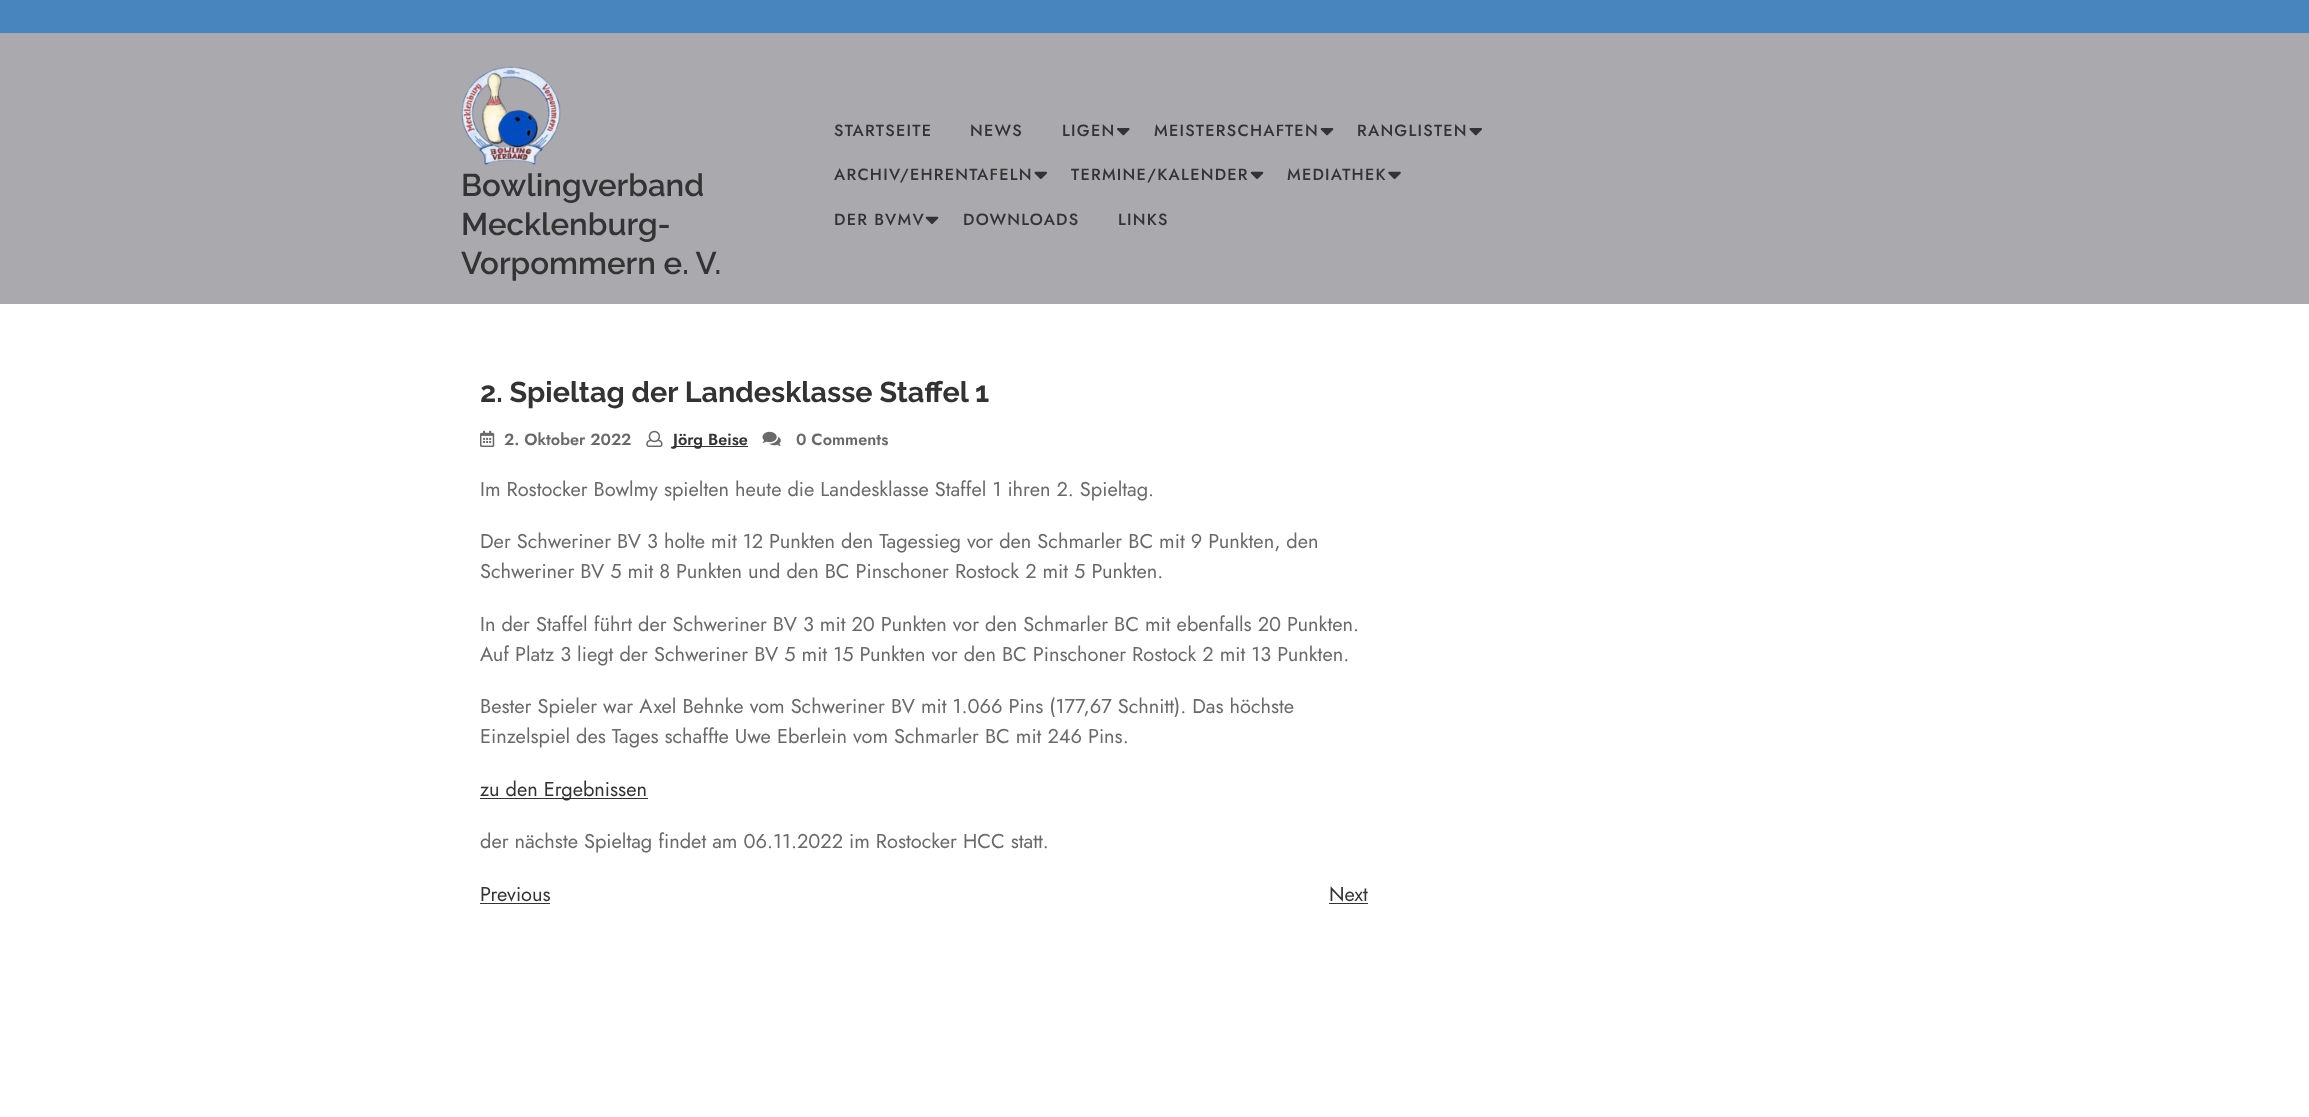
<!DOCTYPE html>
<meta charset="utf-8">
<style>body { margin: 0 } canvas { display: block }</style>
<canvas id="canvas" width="2309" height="1117"></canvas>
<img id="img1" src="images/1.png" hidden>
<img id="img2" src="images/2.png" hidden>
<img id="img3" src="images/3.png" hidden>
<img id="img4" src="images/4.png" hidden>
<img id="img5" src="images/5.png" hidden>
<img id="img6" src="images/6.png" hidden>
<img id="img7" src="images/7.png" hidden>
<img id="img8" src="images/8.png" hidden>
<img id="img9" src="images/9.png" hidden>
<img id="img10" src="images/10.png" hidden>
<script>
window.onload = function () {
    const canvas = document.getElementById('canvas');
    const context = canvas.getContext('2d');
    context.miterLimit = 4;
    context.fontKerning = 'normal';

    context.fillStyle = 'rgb(255, 255, 255)';
    context.fillRect(0, 0, 2309, 1117);
    context.fillStyle = 'rgb(72, 133, 191)';
    context.fillRect(0, 0, 2309, 33);
    context.fillStyle = 'rgb(170, 169, 174)';
    context.fillRect(0, 33, 2309, 271);
    context.drawImage(document.getElementById('img1'), 461, 66, 100, 99);
    context.drawImage(document.getElementById('img2'), 1117, 128, 13, 8);
    context.drawImage(document.getElementById('img3'), 1320, 128, 14, 8);
    context.drawImage(document.getElementById('img4'), 1469, 128, 13, 8);
    context.drawImage(document.getElementById('img5'), 1034, 171, 13, 8);
    context.drawImage(document.getElementById('img6'), 1250, 171, 14, 8);
    context.drawImage(document.getElementById('img7'), 1388, 171, 13, 8);
    context.drawImage(document.getElementById('img6'), 925, 216, 14, 8);
    context.drawImage(document.getElementById('img8'), 480, 430, 15, 17);
    context.drawImage(document.getElementById('img9'), 646, 430, 17, 17);
    context.fillStyle = 'rgb(51, 51, 51)';
    context.fillRect(673, 446, 75, 1);
    context.drawImage(document.getElementById('img10'), 762, 431, 19, 15);
    context.fillRect(480, 798, 168, 1);
    context.fillRect(480, 903, 70, 1);
    context.fillRect(1329, 903, 39, 1);
    context.font = '600 31.25px Raleway';
    context.fillText('Bowlingverband', 461, 196);
    context.fillText('Mecklenburg-', 461, 235);
    context.fillText('Vorpommern e. V.', 461, 274);
    context.letterSpacing = '1.25px';
    context.font = '500 16.25px Jost';
    context.fillText('STARTSEITE', 834, 136);
    context.fillText('NEWS', 970, 136);
    context.fillText('LIGEN', 1062, 136);
    context.fillText('MEISTERSCHAFTEN', 1154, 136);
    context.fillText('RANGLISTEN', 1357, 136);
    context.fillText('ARCHIV/EHRENTAFELN', 834, 180);
    context.fillText('TERMINE/KALENDER', 1071, 180);
    context.fillText('MEDIATHEK', 1287, 180);
    context.fillText('DER BVMV', 834, 225);
    context.fillText('DOWNLOADS', 963, 225);
    context.fillText('LINKS', 1118, 225);
    context.letterSpacing = '0px';
    context.font = 'bold 28.75px Raleway';
    context.fillText('2. Spieltag der Landesklasse Staffel 1', 480, 402);
    context.font = '600 16.25px Jost';
    context.fillStyle = 'rgb(105, 105, 105)';
    context.fillText('2. Oktober 2022', 504, 445);
    context.fillStyle = 'rgb(51, 51, 51)';
    context.fillText('Jörg Beise', 673, 445);
    context.fillStyle = 'rgb(105, 105, 105)';
    context.fillText('0 Comments', 796, 445);
    context.font = '20px Jost';
    context.fillText('Im Rostocker Bowlmy spielten heute die Landesklasse Staffel 1 ihren 2. Spieltag.', 480, 496);
    context.fillText('Der Schweriner BV 3 holte mit 12 Punkten den Tagessieg vor den Schmarler BC mit 9 Punkten, den', 480, 548);
    context.fillText('Schweriner BV 5 mit 8 Punkten und den BC Pinschoner Rostock 2 mit 5 Punkten.', 480, 578);
    context.fillText('In der Staffel führt der Schweriner BV 3 mit 20 Punkten vor den Schmarler BC mit ebenfalls 20 Punkten.', 480, 631);
    context.fillText('Auf Platz 3 liegt der Schweriner BV 5 mit 15 Punkten vor den BC Pinschoner Rostock 2 mit 13 Punkten.', 480, 661);
    context.fillText('Bester Spieler war Axel Behnke vom Schweriner BV mit 1.066 Pins (177,67 Schnitt). Das höchste', 480, 713);
    context.fillText('Einzelspiel des Tages schaffte Uwe Eberlein vom Schmarler BC mit 246 Pins.', 480, 743);
    context.fillStyle = 'rgb(51, 51, 51)';
    context.fillText('zu den Ergebnissen', 480, 796);
    context.fillStyle = 'rgb(105, 105, 105)';
    context.fillText('der nächste Spieltag findet am 06.11.2022 im Rostocker HCC statt.', 480, 848);
    context.fillStyle = 'rgb(51, 51, 51)';
    context.fillText('Previous', 480, 901);
    context.fillText('Next', 1329, 901);
};
</script>
